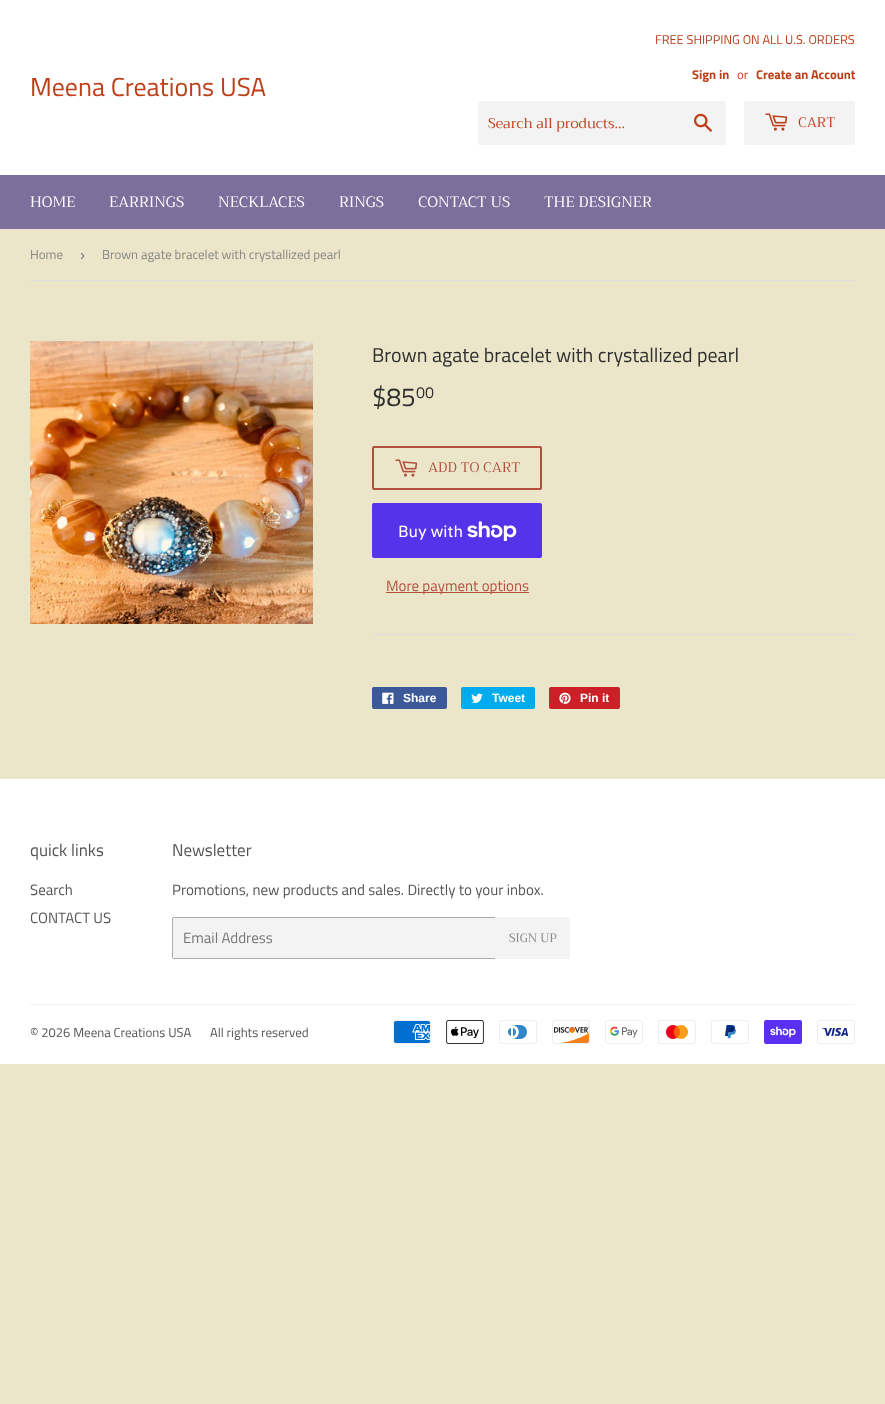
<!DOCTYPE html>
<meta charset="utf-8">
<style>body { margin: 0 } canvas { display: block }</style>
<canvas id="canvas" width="885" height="1404"></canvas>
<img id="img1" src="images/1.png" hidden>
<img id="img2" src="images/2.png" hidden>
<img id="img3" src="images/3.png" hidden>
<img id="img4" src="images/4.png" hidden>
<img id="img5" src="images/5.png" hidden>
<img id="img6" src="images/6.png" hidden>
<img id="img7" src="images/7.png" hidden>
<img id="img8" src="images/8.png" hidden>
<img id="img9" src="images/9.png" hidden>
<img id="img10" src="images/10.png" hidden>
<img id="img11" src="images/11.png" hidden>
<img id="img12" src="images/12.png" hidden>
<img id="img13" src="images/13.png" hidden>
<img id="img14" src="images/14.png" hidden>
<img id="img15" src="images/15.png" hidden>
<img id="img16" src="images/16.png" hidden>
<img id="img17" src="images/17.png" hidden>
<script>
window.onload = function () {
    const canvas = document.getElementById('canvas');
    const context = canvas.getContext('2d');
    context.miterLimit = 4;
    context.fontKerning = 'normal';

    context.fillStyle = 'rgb(235, 230, 201)';
    context.fillRect(0, 0, 885, 1404);
    context.fillStyle = 'rgb(255, 255, 255)';
    context.fillRect(0, 0, 885, 175);
    context.fillStyle = 'rgb(243, 243, 243)';
    context.beginPath();
    context.roundRect(478, 101, 248, 44, 2);
    context.fill();
    context.drawImage(document.getElementById('img1'), 694, 113, 18, 19);
    context.beginPath();
    context.roundRect(744, 101, 111, 44, 2);
    context.fill();
    context.drawImage(document.getElementById('img2'), 765, 113, 23, 18);
    context.fillStyle = 'rgb(124, 111, 156)';
    context.fillRect(0, 175, 885, 54);
    context.fillStyle = 'rgb(222, 222, 222)';
    context.fillRect(30, 280, 825, 1);
    context.drawImage(document.getElementById('img3'), 30, 341, 283, 283);
    context.beginPath();
    context.roundRect(373, 447, 168, 42, 1);
    context.strokeStyle = 'rgb(180, 79, 63)';
    context.lineWidth = 2;
    context.stroke();
    context.drawImage(document.getElementById('img4'), 395, 459, 23, 18);
    context.fillStyle = 'rgb(84, 51, 235)';
    context.beginPath();
    context.roundRect(372, 503, 170, 55, 2);
    context.fill();
    context.drawImage(document.getElementById('img5'), 467, 521, 50, 20);
    context.fillStyle = 'rgb(180, 79, 63)';
    context.fillRect(386, 592, 143, 1);
    context.fillStyle = 'rgb(222, 222, 222)';
    context.fillRect(372, 634, 483, 1);
    context.fillStyle = 'rgb(59, 89, 152)';
    context.beginPath();
    context.roundRect(372, 687, 75, 22, 2);
    context.fill();
    context.drawImage(document.getElementById('img6'), 382, 692, 12, 12);
    context.fillStyle = 'rgb(0, 172, 237)';
    context.beginPath();
    context.roundRect(461, 687, 74, 22, 2);
    context.fill();
    context.drawImage(document.getElementById('img7'), 471, 693, 12, 10);
    context.fillStyle = 'rgb(203, 32, 39)';
    context.beginPath();
    context.roundRect(549, 687, 71, 22, 2);
    context.fill();
    context.drawImage(document.getElementById('img8'), 559, 692, 12, 12);
    context.fillStyle = 'rgb(255, 255, 255)';
    context.fillRect(0, 779, 885, 285);
    context.fillStyle = 'rgb(243, 243, 243)';
    context.beginPath();
    context.roundRect(172, 917, 324, 42, 2);
    context.fill();
    context.fillStyle = 'rgb(171, 171, 171)';
    context.fillRect(173, 917, 322, 1);
    context.fillRect(173, 958, 322, 1);
    context.fillRect(172, 918, 1, 40);
    context.fillStyle = 'rgb(243, 243, 243)';
    context.beginPath();
    context.roundRect(496, 917, 74, 42, [0, 2, 2, 0]);
    context.fill();
    context.fillStyle = 'rgb(242, 242, 242)';
    context.fillRect(30, 1004, 825, 1);
    context.drawImage(document.getElementById('img9'), 393, 1020, 38, 24);
    context.drawImage(document.getElementById('img10'), 446, 1020, 38, 24);
    context.drawImage(document.getElementById('img11'), 499, 1020, 38, 24);
    context.drawImage(document.getElementById('img12'), 552, 1020, 38, 24);
    context.drawImage(document.getElementById('img13'), 605, 1020, 38, 24);
    context.drawImage(document.getElementById('img14'), 658, 1020, 38, 24);
    context.drawImage(document.getElementById('img15'), 711, 1020, 38, 24);
    context.drawImage(document.getElementById('img16'), 764, 1020, 38, 24);
    context.drawImage(document.getElementById('img17'), 817, 1020, 38, 24);
    context.font = '26px Titillium Web';
    context.fillStyle = 'rgb(189, 63, 25)';
    context.fillText('Meena Creations USA', 30, 96);
    context.font = '12.75px Titillium Web';
    context.fillText('FREE SHIPPING ON ALL U.S. ORDERS', 655, 44);
    context.font = 'bold 12.75px Titillium Web';
    context.fillText('Sign in', 692, 79);
    context.font = '12.75px Titillium Web';
    context.fillText('or', 737, 79);
    context.font = 'bold 12.75px Titillium Web';
    context.fillText('Create an Account', 756, 79);
    context.font = '14px Trirong';
    context.fillText('Search all products...', 488, 128);
    context.fillText('CART', 798, 127);
    context.font = '15px Trirong';
    context.fillStyle = 'rgb(255, 255, 255)';
    context.fillText('HOME', 30, 207);
    context.fillText('EARRINGS', 109, 207);
    context.fillText('NECKLACES', 218, 207);
    context.fillText('RINGS', 339, 207);
    context.fillText('CONTACT US', 418, 207);
    context.fillText('THE DESIGNER', 544, 207);
    context.font = '13px Titillium Web';
    context.fillStyle = 'rgb(133, 133, 133)';
    context.fillText('Home', 30, 259);
    context.font = '15px Liberation Sans';
    context.fillStyle = 'rgb(118, 118, 118)';
    context.fillText('›', 80, 260);
    context.font = '13px Titillium Web';
    context.fillStyle = 'rgb(133, 133, 133)';
    context.fillText('Brown agate bracelet with crystallized pearl', 102, 259);
    context.font = '20px Titillium Web';
    context.fillStyle = 'rgb(47, 47, 47)';
    context.fillText('Brown agate bracelet with crystallized pearl', 372, 362);
    context.font = '26px Titillium Web';
    context.fillText('$85', 372, 406);
    context.font = '16px Titillium Web';
    context.fillText('00', 416, 398);
    context.font = '14px Trirong';
    context.fillStyle = 'rgb(180, 79, 63)';
    context.fillText('ADD TO CART', 428, 472);
    context.font = '16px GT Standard';
    context.fillStyle = 'rgb(255, 255, 255)';
    context.fillText('Buy with', 398, 537);
    context.font = '15px Titillium Web';
    context.fillStyle = 'rgb(180, 79, 63)';
    context.fillText('More payment options', 386, 591);
    context.font = 'bold 12px Liberation Sans';
    context.fillStyle = 'rgb(255, 255, 255)';
    context.fillText('Share', 403, 702);
    context.fillText('Tweet', 492, 702);
    context.fillText('Pin it', 580, 702);
    context.font = '17px Titillium Web';
    context.fillStyle = 'rgb(84, 84, 84)';
    context.fillText('quick links', 30, 856);
    context.font = '15px Titillium Web';
    context.fillText('Search', 30, 895);
    context.fillText('CONTACT US', 30, 923);
    context.font = '17px Titillium Web';
    context.fillText('Newsletter', 172, 856);
    context.font = '15px Titillium Web';
    context.fillText('Promotions, new products and sales. Directly to your inbox.', 172, 895);
    context.fillStyle = 'rgb(118, 118, 118)';
    context.fillText('Email Address', 183, 943);
    context.font = '12px Trirong';
    context.fillStyle = 'rgb(133, 133, 133)';
    context.fillText('SIGN UP', 509, 942);
    context.font = '13px Titillium Web';
    context.fillStyle = 'rgb(84, 84, 84)';
    context.fillText('© 2026 Meena Creations USA', 30, 1037);
    context.fillText('All rights reserved', 210, 1037);
};
</script>
